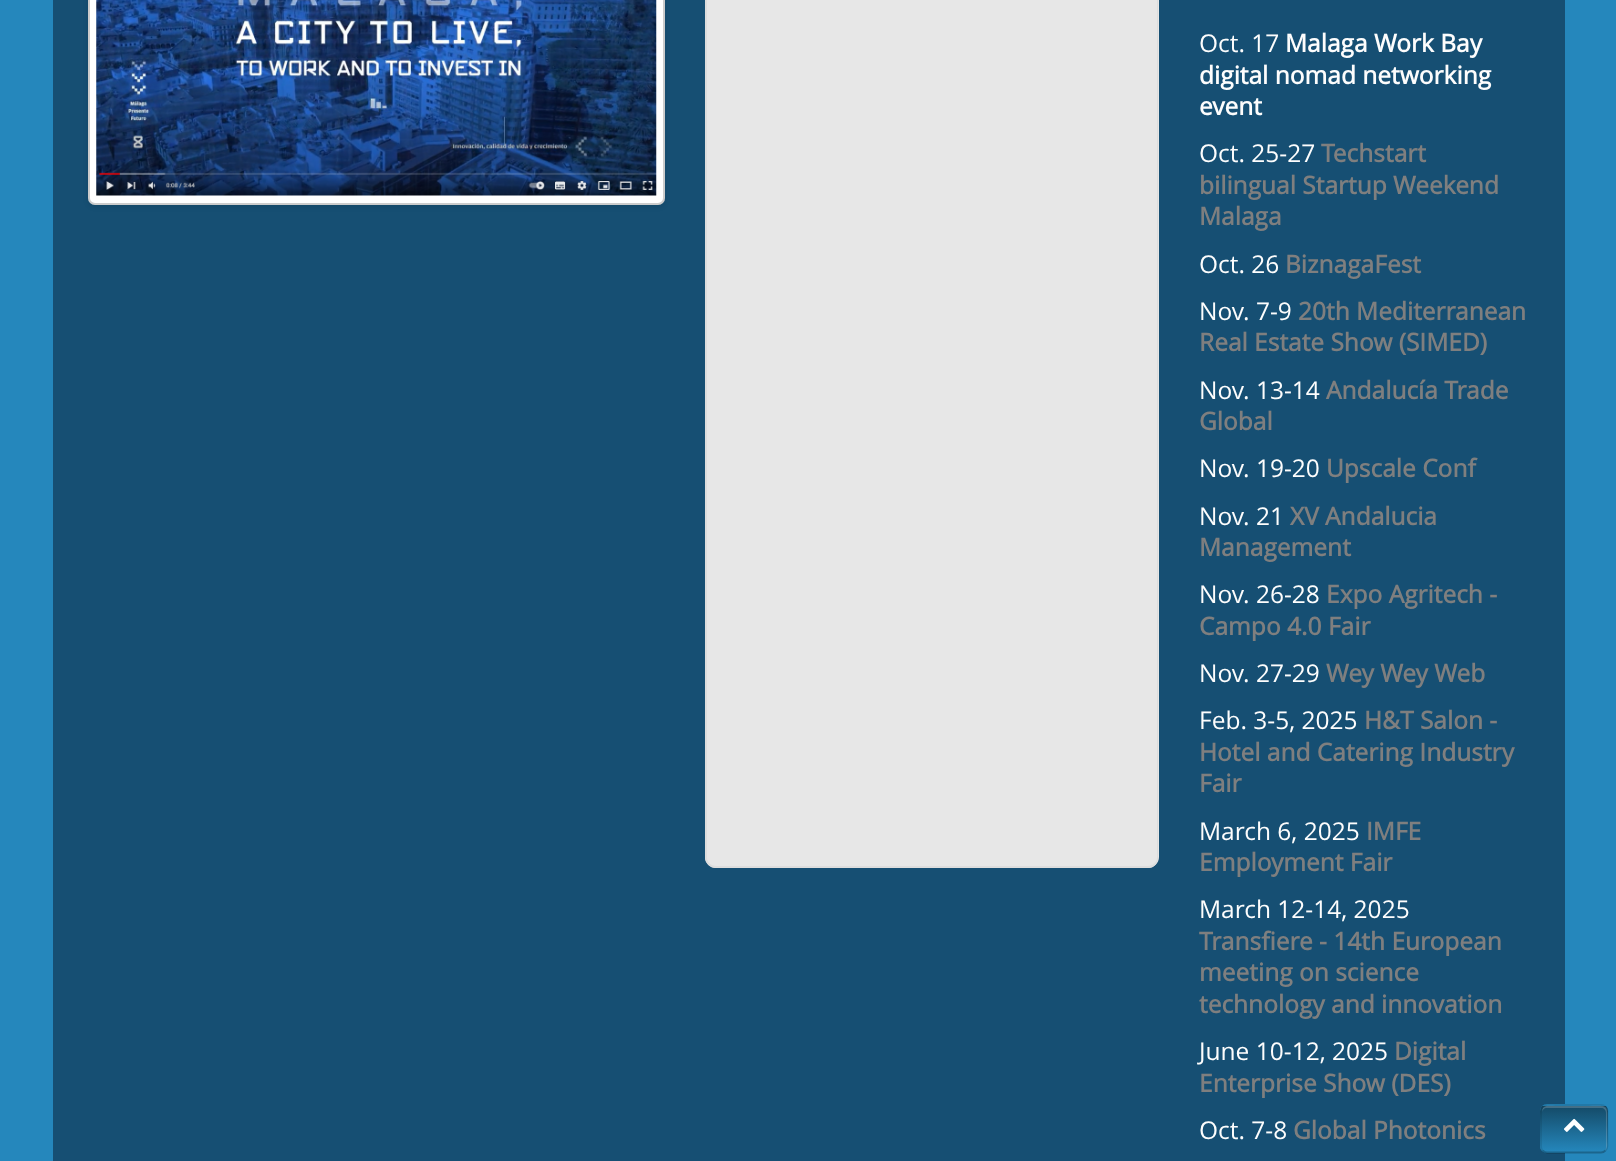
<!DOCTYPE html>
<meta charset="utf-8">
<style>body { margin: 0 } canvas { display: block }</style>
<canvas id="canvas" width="1616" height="1161"></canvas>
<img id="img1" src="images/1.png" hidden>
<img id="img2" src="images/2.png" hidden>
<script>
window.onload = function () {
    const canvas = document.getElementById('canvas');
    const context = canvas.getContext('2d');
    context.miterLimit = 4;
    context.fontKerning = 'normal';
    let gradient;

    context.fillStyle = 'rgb(37, 135, 188)';
    context.fillRect(0, 0, 1616, 1161);
    context.fillStyle = 'rgb(22, 79, 115)';
    context.fillRect(53, 0, 1512, 1161);
    context.fillStyle = 'rgba(0, 0, 0, 0.1)';
    context.filter = 'blur(2.5px)';
    context.beginPath();
    context.roundRect(88, -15, 577, 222, 7);
    context.fill();
    context.filter = 'none';
    context.fillStyle = 'rgb(255, 255, 255)';
    context.beginPath();
    context.roundRect(88, -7, 577, 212, 7);
    context.fill();
    context.beginPath();
    context.roundRect(89, -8, 575, 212, 6);
    context.strokeStyle = 'rgba(0, 0, 0, 0.2)';
    context.lineWidth = 2;
    context.stroke();
    context.drawImage(document.getElementById('img1'), 96, 0, 561, 196);
    context.fillStyle = 'rgb(231, 231, 231)';
    context.beginPath();
    context.moveTo(705, -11);
    context.lineTo(1159, -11);
    context.lineTo(1159, 857);
    context.bezierCurveTo(1159, 863, 1154, 868, 1148, 868);
    context.lineTo(716, 868);
    context.bezierCurveTo(710, 868, 705, 863, 705, 857);
    context.closePath();
    context.fill();
    context.fillStyle = 'rgb(221, 221, 221)';
    context.beginPath();
    context.moveTo(705, -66);
    context.lineTo(1158, -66);
    context.lineTo(1158, 858);
    context.bezierCurveTo(1158, 863, 1154, 868, 1148, 868);
    context.lineTo(716, 868);
    context.bezierCurveTo(710, 868, 705, 863, 705, 858);
    context.closePath();
    context.moveTo(707, -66);
    context.lineTo(1157, -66);
    context.lineTo(1157, 858);
    context.bezierCurveTo(1157, 862, 1153, 866, 1148, 866);
    context.lineTo(716, 866);
    context.bezierCurveTo(711, 866, 707, 862, 707, 858);
    context.closePath();
    context.fill('evenodd');
    context.fillStyle = 'rgb(37, 135, 188)';
    context.beginPath();
    context.roundRect(1540, 1104, 68, 49, 7);
    context.fill();
    context.save();
    context.beginPath();
    context.roundRect(1540, 1104, 68, 49, 7);
    context.clip();
    gradient = context.createLinearGradient(1574, 1106, 1574, 1152);
    gradient.addColorStop(0, 'rgb(20, 74, 103)');
    gradient.addColorStop(1, 'rgb(37, 135, 188)');
    context.fillStyle = gradient;
    context.fillRect(1540, 1106, 68, 46);
    context.restore();
    context.fillStyle = 'rgba(255, 255, 255, 0.2)';
    context.beginPath();
    context.moveTo(1547, 1108);
    context.lineTo(1601, 1108);
    context.bezierCurveTo(1604, 1108, 1606, 1110, 1606, 1113);
    context.lineTo(1606, 1148);
    context.lineTo(1605, 1151);
    context.bezierCurveTo(1608, 1148, 1607, 1144, 1607, 1141);
    context.lineTo(1607, 1129);
    context.bezierCurveTo(1607, 1102, 1611, 1106, 1584, 1106);
    context.lineTo(1556, 1106);
    context.bezierCurveTo(1548, 1106, 1542, 1104, 1542, 1113);
    context.bezierCurveTo(1542, 1110, 1544, 1108, 1547, 1108);
    context.closePath();
    context.fill();
    context.beginPath();
    context.moveTo(1605.5, 1150.5);
    context.bezierCurveTo(1604.5, 1151.5, 1603, 1152.5, 1601, 1152.5);
    context.lineTo(1547, 1152.5);
    context.bezierCurveTo(1545.5, 1152.5, 1544, 1151.5, 1542.5, 1150.5);
    context.strokeStyle = 'rgba(0, 0, 0, 0.25)';
    context.lineWidth = 1.8;
    context.stroke();
    context.beginPath();
    context.moveTo(1542.5, 1150.5);
    context.bezierCurveTo(1541.5, 1149.5, 1541, 1148, 1541, 1146);
    context.lineTo(1541, 1111);
    context.bezierCurveTo(1541, 1109.5, 1541.5, 1108, 1542.5, 1107);
    context.bezierCurveTo(1544, 1106, 1545.5, 1105, 1547, 1105);
    context.lineTo(1601, 1105);
    context.bezierCurveTo(1603, 1105, 1604.5, 1106, 1605.5, 1107);
    context.bezierCurveTo(1606.5, 1108, 1607.5, 1109.5, 1607.5, 1111);
    context.lineTo(1607.5, 1146);
    context.bezierCurveTo(1607.5, 1148, 1606.5, 1149.5, 1605.5, 1150.5);
    context.strokeStyle = 'rgba(0, 0, 0, 0.1)';
    context.stroke();
    context.drawImage(document.getElementById('img2'), 1564, 1118, 21, 14);
    context.font = '24.5px Open Sans';
    context.fillStyle = 'rgb(253, 253, 253)';
    context.fillText('Oct. 17', 1199, 52);
    context.font = 'bold 24.5px Open Sans';
    context.fillText('Malaga Work Bay', 1285, 52);
    context.fillText('digital nomad networking', 1199, 84);
    context.fillText('event', 1199, 115);
    context.font = '24.5px Open Sans';
    context.fillText('Oct. 25-27', 1199, 162);
    context.font = 'bold 24.5px Open Sans';
    context.fillStyle = 'rgb(127, 127, 127)';
    context.fillText('Techstart', 1321, 162);
    context.fillText('bilingual Startup Weekend', 1199, 194);
    context.fillText('Malaga', 1199, 225);
    context.font = '24.5px Open Sans';
    context.fillStyle = 'rgb(253, 253, 253)';
    context.fillText('Oct. 26', 1199, 273);
    context.font = 'bold 24.5px Open Sans';
    context.fillStyle = 'rgb(127, 127, 127)';
    context.fillText('BiznagaFest', 1285, 273);
    context.font = '24.5px Open Sans';
    context.fillStyle = 'rgb(253, 253, 253)';
    context.fillText('Nov. 7-9', 1199, 320);
    context.font = 'bold 24.5px Open Sans';
    context.fillStyle = 'rgb(127, 127, 127)';
    context.fillText('20th Mediterranean', 1298, 320);
    context.fillText('Real Estate Show (SIMED)', 1199, 351);
    context.font = '24.5px Open Sans';
    context.fillStyle = 'rgb(253, 253, 253)';
    context.fillText('Nov. 13-14', 1199, 399);
    context.font = 'bold 24.5px Open Sans';
    context.fillStyle = 'rgb(127, 127, 127)';
    context.fillText('Andalucía Trade', 1326, 399);
    context.fillText('Global', 1199, 430);
    context.font = '24.5px Open Sans';
    context.fillStyle = 'rgb(253, 253, 253)';
    context.fillText('Nov. 19-20', 1199, 477);
    context.font = 'bold 24.5px Open Sans';
    context.fillStyle = 'rgb(127, 127, 127)';
    context.fillText('Upscale Conf', 1326, 477);
    context.font = '24.5px Open Sans';
    context.fillStyle = 'rgb(253, 253, 253)';
    context.fillText('Nov. 21', 1199, 525);
    context.font = 'bold 24.5px Open Sans';
    context.fillStyle = 'rgb(127, 127, 127)';
    context.fillText('XV Andalucia', 1290, 525);
    context.fillText('Management', 1199, 556);
    context.font = '24.5px Open Sans';
    context.fillStyle = 'rgb(253, 253, 253)';
    context.fillText('Nov. 26-28', 1199, 603);
    context.font = 'bold 24.5px Open Sans';
    context.fillStyle = 'rgb(127, 127, 127)';
    context.fillText('Expo Agritech -', 1326, 603);
    context.fillText('Campo 4.0 Fair', 1199, 635);
    context.font = '24.5px Open Sans';
    context.fillStyle = 'rgb(253, 253, 253)';
    context.fillText('Nov. 27-29', 1199, 682);
    context.font = 'bold 24.5px Open Sans';
    context.fillStyle = 'rgb(127, 127, 127)';
    context.fillText('Wey Wey Web', 1326, 682);
    context.font = '24.5px Open Sans';
    context.fillStyle = 'rgb(253, 253, 253)';
    context.fillText('Feb. 3-5, 2025', 1199, 729);
    context.font = 'bold 24.5px Open Sans';
    context.fillStyle = 'rgb(127, 127, 127)';
    context.fillText('H&T Salon -', 1364, 729);
    context.fillText('Hotel and Catering Industry', 1199, 761);
    context.fillText('Fair', 1199, 792);
    context.font = '24.5px Open Sans';
    context.fillStyle = 'rgb(253, 253, 253)';
    context.fillText('March 6, 2025', 1199, 840);
    context.font = 'bold 24.5px Open Sans';
    context.fillStyle = 'rgb(127, 127, 127)';
    context.fillText('IMFE', 1366, 840);
    context.fillText('Employment Fair', 1199, 871);
    context.font = '24.5px Open Sans';
    context.fillStyle = 'rgb(253, 253, 253)';
    context.fillText('March 12-14, 2025', 1199, 918);
    context.font = 'bold 24.5px Open Sans';
    context.fillStyle = 'rgb(127, 127, 127)';
    context.fillText('Transfiere - 14th European', 1199, 950);
    context.fillText('meeting on science', 1199, 981);
    context.fillText('technology and innovation', 1199, 1013);
    context.font = '24.5px Open Sans';
    context.fillStyle = 'rgb(253, 253, 253)';
    context.fillText('June 10-12, 2025', 1199, 1060);
    context.font = 'bold 24.5px Open Sans';
    context.fillStyle = 'rgb(127, 127, 127)';
    context.fillText('Digital', 1394, 1060);
    context.fillText('Enterprise Show (DES)', 1199, 1092);
    context.font = '24.5px Open Sans';
    context.fillStyle = 'rgb(253, 253, 253)';
    context.fillText('Oct. 7-8', 1199, 1139);
    context.font = 'bold 24.5px Open Sans';
    context.fillStyle = 'rgb(127, 127, 127)';
    context.fillText('Global Photonics', 1293, 1139);
};
</script>
